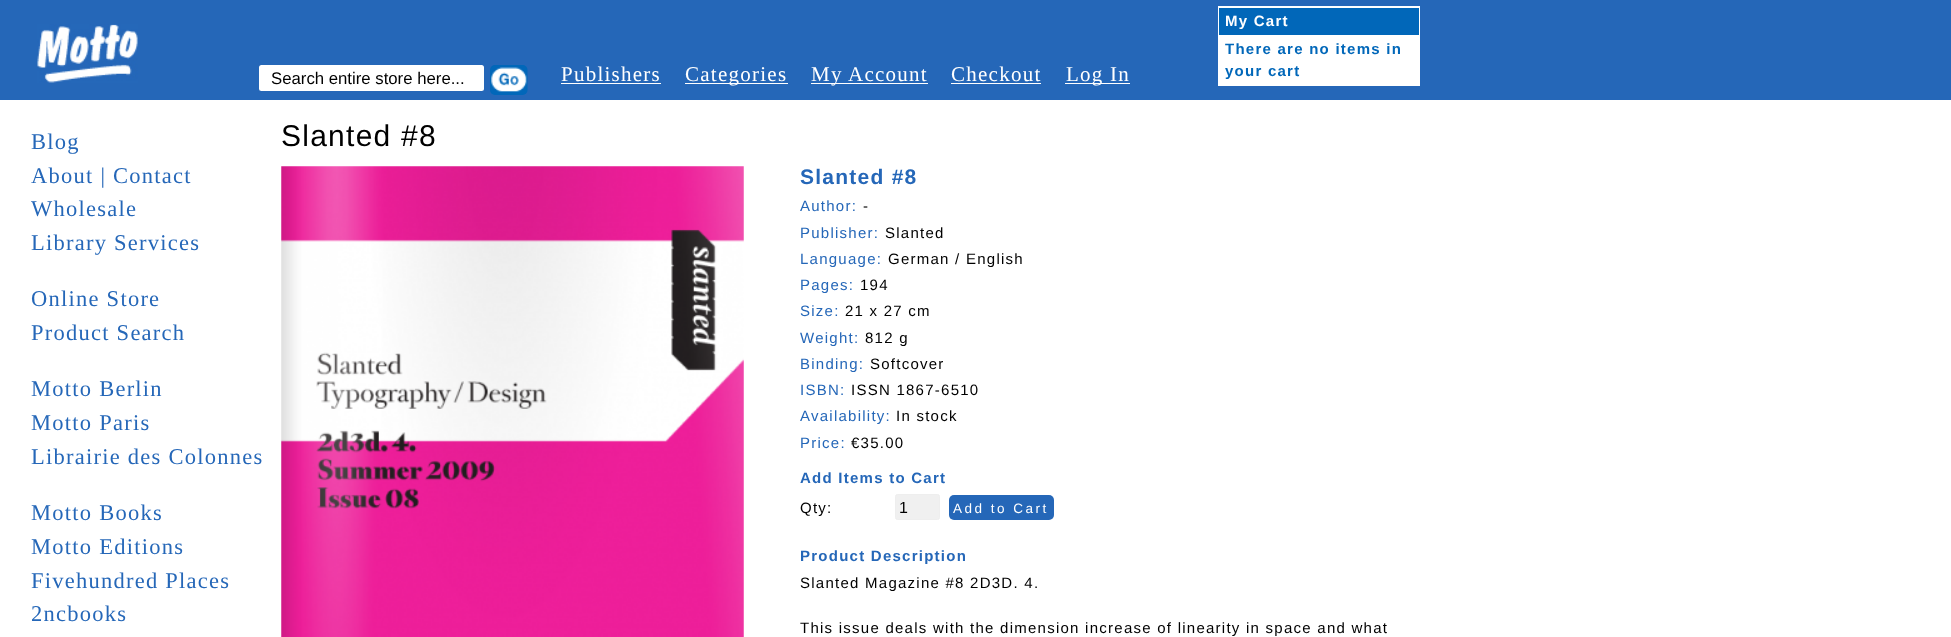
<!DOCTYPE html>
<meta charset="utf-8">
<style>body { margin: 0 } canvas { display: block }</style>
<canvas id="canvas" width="1951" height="637"></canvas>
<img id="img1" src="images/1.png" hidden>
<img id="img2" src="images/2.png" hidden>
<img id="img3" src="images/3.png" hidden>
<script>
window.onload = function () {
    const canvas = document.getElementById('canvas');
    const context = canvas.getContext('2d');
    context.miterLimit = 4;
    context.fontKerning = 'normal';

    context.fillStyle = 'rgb(255, 255, 255)';
    context.fillRect(0, 0, 1951, 637);
    context.fillStyle = 'rgb(37, 103, 184)';
    context.fillRect(0, 0, 1951, 100);
    context.drawImage(document.getElementById('img1'), 37, 24, 101, 59);
    context.fillStyle = 'rgb(255, 255, 255)';
    context.beginPath();
    context.roundRect(259, 65, 225, 26, 2.5);
    context.fill();
    context.drawImage(document.getElementById('img2'), 490, 65, 38, 30);
    context.fillRect(561, 83, 100, 1);
    context.fillRect(685, 83, 103, 1);
    context.fillRect(811, 83, 117, 1);
    context.fillRect(951, 83, 90, 1);
    context.fillRect(1065, 83, 65, 1);
    context.fillRect(1218, 6, 202, 80);
    context.fillStyle = 'rgb(1, 103, 185)';
    context.fillRect(1219, 8, 200, 27);
    context.drawImage(document.getElementById('img3'), 281, 166, 463, 471);
    context.fillStyle = 'rgb(240, 240, 240)';
    context.beginPath();
    context.roundRect(895.5, 494.5, 44, 25, 2);
    context.fill();
    context.strokeStyle = 'rgb(238, 238, 238)';
    context.stroke();
    context.fillStyle = 'rgb(37, 103, 184)';
    context.beginPath();
    context.roundRect(949, 495, 105, 25, 5);
    context.fill();
    context.font = '16.75px Liberation Sans';
    context.fillStyle = 'rgb(0, 0, 0)';
    context.fillText('Search entire store here...', 271, 84);
    context.letterSpacing = '1.25px';
    context.font = '21px Liberation Serif';
    context.fillStyle = 'rgb(255, 255, 255)';
    context.fillText('Publishers', 561, 81);
    context.fillText('Categories', 685, 81);
    context.fillText('My Account', 811, 81);
    context.fillText('Checkout', 951, 81);
    context.fillText('Log In', 1066, 81);
    context.font = 'bold 15px Liberation Sans';
    context.fillText('My Cart', 1225, 26);
    context.fillStyle = 'rgb(1, 103, 185)';
    context.fillText('There are no items in', 1225, 54);
    context.fillText('your cart', 1225, 76);
    context.font = '22.5px Liberation Serif';
    context.fillStyle = 'rgb(37, 103, 184)';
    context.fillText('Blog', 31, 149);
    context.fillText('About | Contact', 31, 183);
    context.fillText('Wholesale', 31, 216);
    context.fillText('Library Services', 31, 250);
    context.fillText('Online Store', 31, 306);
    context.fillText('Product Search', 31, 340);
    context.fillText('Motto Berlin', 31, 396);
    context.fillText('Motto Paris', 31, 430);
    context.fillText('Librairie des Colonnes', 31, 464);
    context.fillText('Motto Books', 31, 520);
    context.fillText('Motto Editions', 31, 554);
    context.fillText('Fivehundred Places', 31, 588);
    context.fillText('2ncbooks', 31, 621);
    context.font = '30px Liberation Sans';
    context.fillStyle = 'rgb(0, 0, 0)';
    context.fillText('Slanted #8', 281, 146);
    context.font = 'bold 21px Liberation Sans';
    context.fillStyle = 'rgb(37, 103, 184)';
    context.fillText('Slanted #8', 800, 184);
    context.font = '15px Liberation Sans';
    context.fillText('Author:', 800, 211);
    context.fillStyle = 'rgb(0, 0, 0)';
    context.fillText('-', 863, 211);
    context.fillStyle = 'rgb(37, 103, 184)';
    context.fillText('Publisher:', 800, 238);
    context.fillStyle = 'rgb(0, 0, 0)';
    context.fillText('Slanted', 885, 238);
    context.fillStyle = 'rgb(37, 103, 184)';
    context.fillText('Language:', 800, 264);
    context.fillStyle = 'rgb(0, 0, 0)';
    context.fillText('German / English', 888, 264);
    context.fillStyle = 'rgb(37, 103, 184)';
    context.fillText('Pages:', 800, 290);
    context.fillStyle = 'rgb(0, 0, 0)';
    context.fillText('194', 860, 290);
    context.fillStyle = 'rgb(37, 103, 184)';
    context.fillText('Size:', 800, 316);
    context.fillStyle = 'rgb(0, 0, 0)';
    context.fillText('21 x 27 cm', 845, 316);
    context.fillStyle = 'rgb(37, 103, 184)';
    context.fillText('Weight:', 800, 343);
    context.fillStyle = 'rgb(0, 0, 0)';
    context.fillText('812 g', 865, 343);
    context.fillStyle = 'rgb(37, 103, 184)';
    context.fillText('Binding:', 800, 369);
    context.fillStyle = 'rgb(0, 0, 0)';
    context.fillText('Softcover', 870, 369);
    context.fillStyle = 'rgb(37, 103, 184)';
    context.fillText('ISBN:', 800, 395);
    context.fillStyle = 'rgb(0, 0, 0)';
    context.fillText('ISSN 1867-6510', 851, 395);
    context.fillStyle = 'rgb(37, 103, 184)';
    context.fillText('Availability:', 800, 421);
    context.fillStyle = 'rgb(0, 0, 0)';
    context.fillText('In stock', 896, 421);
    context.fillStyle = 'rgb(37, 103, 184)';
    context.fillText('Price:', 800, 448);
    context.fillStyle = 'rgb(0, 0, 0)';
    context.fillText('€35.00', 851, 448);
    context.font = 'bold 15px Liberation Sans';
    context.fillStyle = 'rgb(37, 103, 184)';
    context.fillText('Add Items to Cart', 800, 483);
    context.font = '15px Liberation Sans';
    context.fillStyle = 'rgb(0, 0, 0)';
    context.fillText('Qty:', 800, 513);
    context.letterSpacing = '0px';
    context.font = '16px Liberation Sans';
    context.fillText('1', 899, 513);
    context.letterSpacing = '2.5px';
    context.font = '13.5px Liberation Sans';
    context.fillStyle = 'rgb(255, 255, 255)';
    context.fillText('Add to Cart', 953, 513);
    context.letterSpacing = '1.25px';
    context.font = 'bold 15px Liberation Sans';
    context.fillStyle = 'rgb(37, 103, 184)';
    context.fillText('Product Description', 800, 561);
    context.font = '15px Liberation Sans';
    context.fillStyle = 'rgb(0, 0, 0)';
    context.fillText('Slanted Magazine #8 2D3D. 4.', 800, 588);
    context.fillText('This issue deals with the dimension increase of linearity in space and what', 800, 633);
};
</script>
